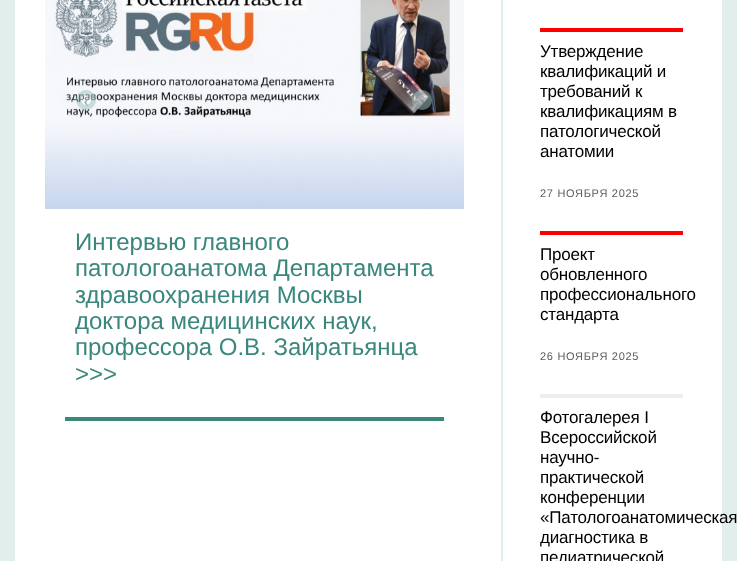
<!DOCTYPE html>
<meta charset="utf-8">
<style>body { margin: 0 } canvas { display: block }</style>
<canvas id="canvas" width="737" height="561"></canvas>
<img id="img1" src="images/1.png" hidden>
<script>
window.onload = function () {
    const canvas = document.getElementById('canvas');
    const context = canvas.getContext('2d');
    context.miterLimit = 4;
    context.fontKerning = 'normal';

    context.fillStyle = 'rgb(226, 238, 236)';
    context.fillRect(0, 0, 737, 561);
    context.fillStyle = 'rgb(255, 255, 255)';
    context.fillRect(15, 0, 707, 561);
    context.drawImage(document.getElementById('img1'), 45, 0, 419, 209);
    context.fillStyle = 'rgba(255, 255, 255, 0.35)';
    context.beginPath();
    context.arc(86, 100, 10, 0, 2 * Math.PI);
    context.fill();
    context.beginPath();
    context.arc(86, 100, 7.5, 0, 2 * Math.PI);
    context.strokeStyle = 'rgba(57, 135, 125, 0.25)';
    context.lineWidth = 5;
    context.stroke();
    context.beginPath();
    context.arc(422, 100, 10, 0, 2 * Math.PI);
    context.fill();
    context.beginPath();
    context.arc(422, 100, 7.5, 0, 2 * Math.PI);
    context.stroke();
    context.fillStyle = 'rgb(57, 135, 125)';
    context.fillRect(65, 417, 379, 4);
    context.fillStyle = 'rgb(225, 237, 235)';
    context.fillRect(501, 0, 2, 561);
    context.fillStyle = 'rgb(255, 0, 0)';
    context.fillRect(540, 28, 143, 4);
    context.fillRect(540, 231, 143, 4);
    context.fillStyle = 'rgb(238, 238, 238)';
    context.fillRect(540, 394, 143, 4);
    context.font = '20px Liberation Serif';
    context.fillStyle = 'rgb(139, 181, 176)';
    context.fillText('‹', 83, 107);
    context.fillStyle = 'rgb(104, 143, 140)';
    context.fillText('›', 419, 107);
    context.font = '24px Liberation Sans';
    context.fillStyle = 'rgb(57, 135, 125)';
    context.fillText('Интервью главного', 75, 250);
    context.fillText('патологоанатома Департамента', 75, 276);
    context.fillText('здравоохранения Москвы', 75, 303);
    context.fillText('доктора медицинских наук,', 75, 329);
    context.fillText('профессора О.В. Зайратьянца', 75, 355);
    context.fillText('>>>', 75, 382);
    context.letterSpacing = '-0.2px';
    context.font = '17px Liberation Sans';
    context.fillStyle = 'rgb(0, 0, 0)';
    context.fillText('Утверждение', 540, 57);
    context.fillText('квалификаций и', 540, 77);
    context.fillText('требований к', 540, 97);
    context.fillText('квалификациям в', 540, 117);
    context.fillText('патологической', 540, 137);
    context.fillText('анатомии', 540, 157);
    context.letterSpacing = '0.7px';
    context.font = '11px Liberation Sans';
    context.fillStyle = 'rgb(92, 92, 92)';
    context.fillText('27 НОЯБРЯ 2025', 540, 197);
    context.letterSpacing = '-0.2px';
    context.font = '17px Liberation Sans';
    context.fillStyle = 'rgb(0, 0, 0)';
    context.fillText('Проект', 540, 260);
    context.fillText('обновленного', 540, 280);
    context.fillText('профессионального', 540, 300);
    context.fillText('стандарта', 540, 320);
    context.letterSpacing = '0.7px';
    context.font = '11px Liberation Sans';
    context.fillStyle = 'rgb(92, 92, 92)';
    context.fillText('26 НОЯБРЯ 2025', 540, 360);
    context.letterSpacing = '-0.2px';
    context.font = '17px Liberation Sans';
    context.fillStyle = 'rgb(0, 0, 0)';
    context.fillText('Фотогалерея I', 540, 423);
    context.fillText('Всероссийской', 540, 443);
    context.fillText('научно-', 540, 463);
    context.fillText('практической', 540, 483);
    context.fillText('конференции', 540, 503);
    context.fillText('«Патологоанатомическая', 540, 523);
    context.fillText('диагностика в', 540, 543);
    context.fillText('педиатрической', 540, 563);
};
</script>
